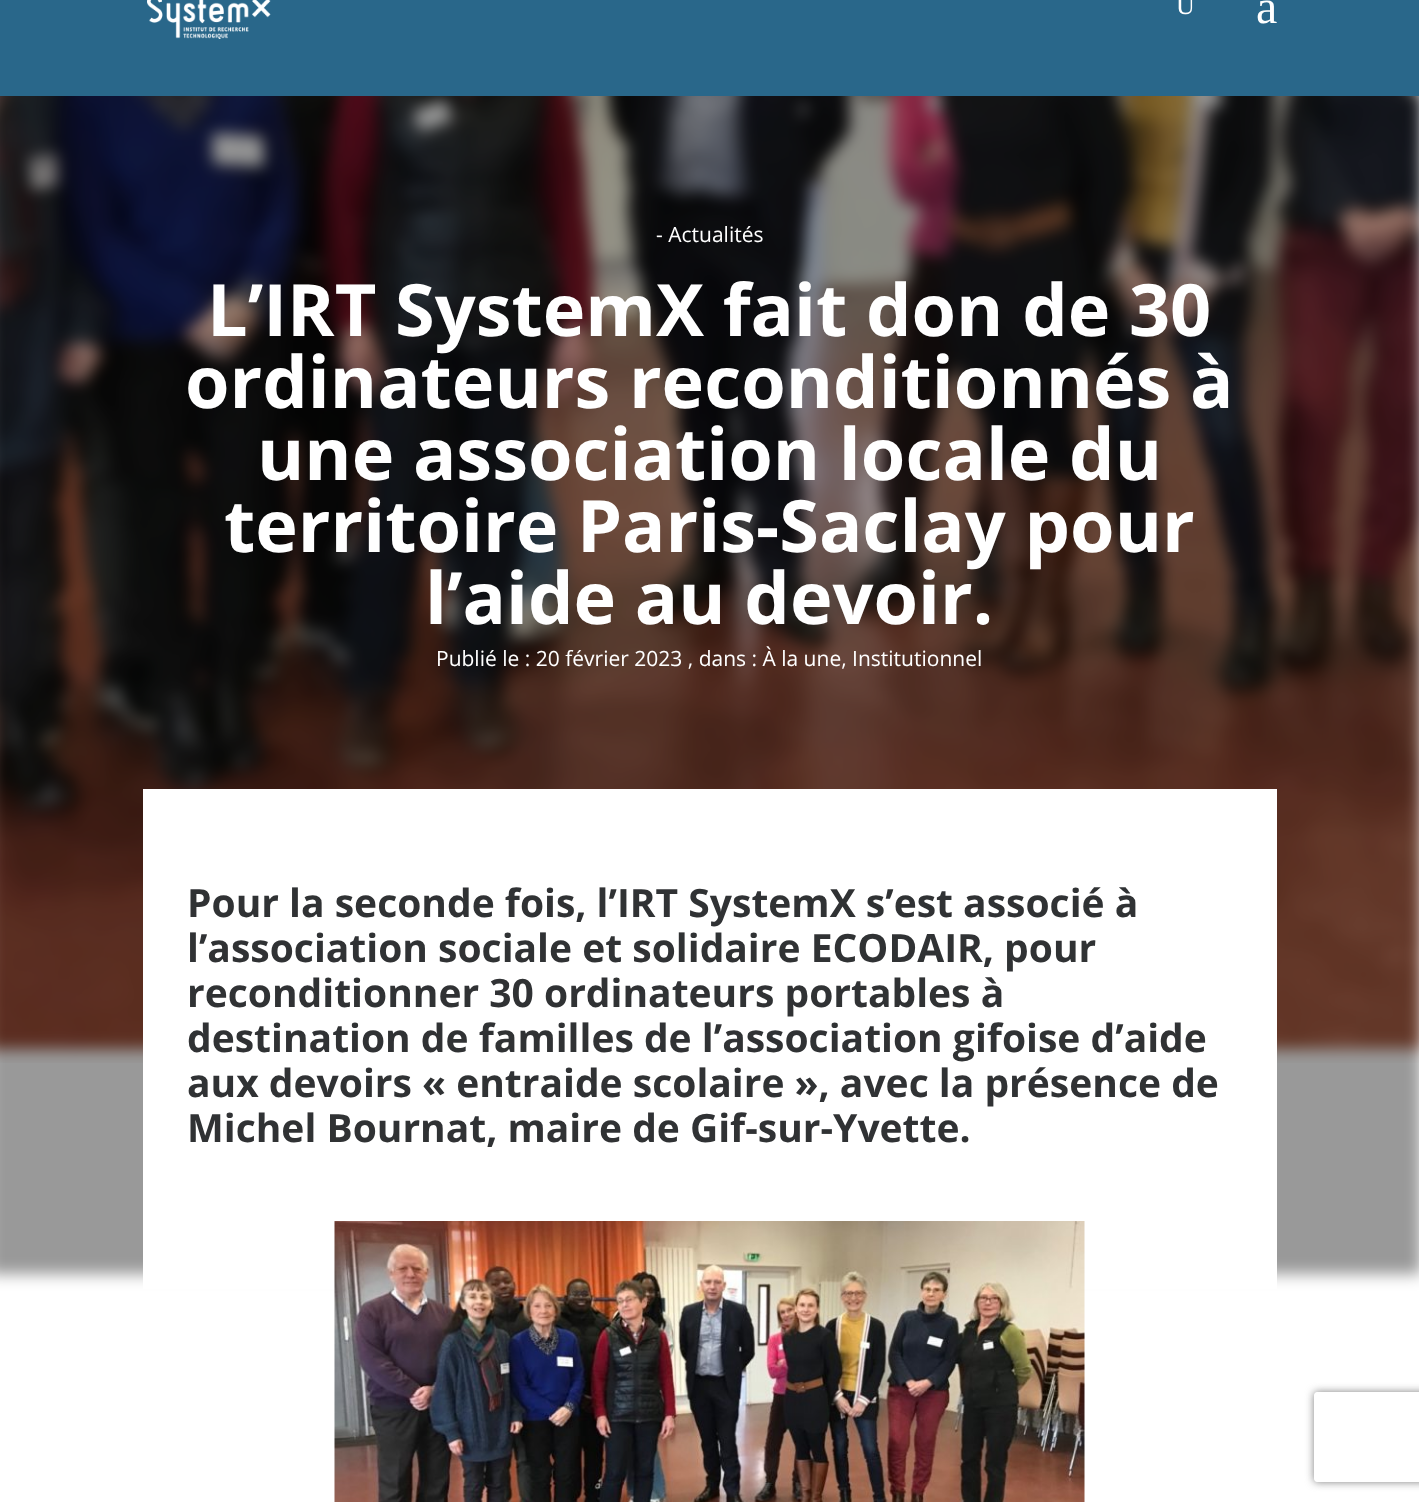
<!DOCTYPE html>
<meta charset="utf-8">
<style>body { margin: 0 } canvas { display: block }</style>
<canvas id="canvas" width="1419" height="1502"></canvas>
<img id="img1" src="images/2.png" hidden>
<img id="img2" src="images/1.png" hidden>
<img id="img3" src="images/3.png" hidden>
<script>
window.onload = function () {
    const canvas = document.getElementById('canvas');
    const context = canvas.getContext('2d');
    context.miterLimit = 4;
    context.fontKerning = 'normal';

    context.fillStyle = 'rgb(255, 255, 255)';
    context.fillRect(0, 0, 1419, 1502);
    context.drawImage(document.getElementById('img1'), 0, 96, 1419, 967);
    context.fillStyle = 'rgba(0, 0, 0, 0.4)';
    context.filter = 'blur(7.5px)';
    context.beginPath();
    context.rect(-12, -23, 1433, 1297);
    context.fill();
    context.filter = 'none';
    context.fillStyle = 'rgb(41, 103, 138)';
    context.fillRect(0, 0, 1419, 96);
    context.drawImage(document.getElementById('img2'), 147, 0, 124, 39);
    context.fillStyle = 'rgb(255, 255, 255)';
    context.fillRect(143, 789, 1134, 500);
    context.drawImage(document.getElementById('img3'), 334, 1221, 751, 281);
    context.save();
    context.beginPath();
    context.moveTo(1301, 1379);
    context.lineTo(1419, 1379);
    context.lineTo(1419, 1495);
    context.lineTo(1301, 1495);
    context.closePath();
    context.moveTo(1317, 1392);
    context.lineTo(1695, 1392);
    context.bezierCurveTo(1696.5, 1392, 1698, 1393.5, 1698, 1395);
    context.lineTo(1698, 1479);
    context.bezierCurveTo(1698, 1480.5, 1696.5, 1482, 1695, 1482);
    context.lineTo(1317, 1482);
    context.bezierCurveTo(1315.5, 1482, 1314, 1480.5, 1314, 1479);
    context.lineTo(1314, 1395);
    context.bezierCurveTo(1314, 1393.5, 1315.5, 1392, 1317, 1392);
    context.closePath();
    context.clip('evenodd');
    context.fillStyle = 'rgb(128, 128, 128)';
    context.filter = 'blur(4px)';
    context.beginPath();
    context.roundRect(1314, 1392, 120, 90, 3);
    context.fill();
    context.filter = 'none';
    context.restore();
    context.font = '26px Liberation Serif';
    context.fillText('U', 1176, 14);
    context.font = '48px Liberation Serif';
    context.fillText('a', 1256, 23);
    context.font = '21px Open Sans';
    context.fillText('- Actualités', 656, 242);
    context.font = 'bold 72px Open Sans';
    context.fillText('L’IRT SystemX fait don de 30', 207, 336);
    context.fillText('ordinateurs reconditionnés à', 185, 408);
    context.fillText('une association locale du', 257, 480);
    context.fillText('territoire Paris-Saclay pour', 224, 552);
    context.fillText('l’aide au devoir.', 425, 624);
    context.font = '21px Open Sans';
    context.fillText('Publié le : 20 février 2023 , dans : À la une, Institutionnel', 436, 666);
    context.font = 'bold 39px Open Sans';
    context.fillStyle = 'rgb(48, 50, 52)';
    context.fillText('Pour la seconde fois, l’IRT SystemX s’est associé à', 187, 917);
    context.fillText('l’association sociale et solidaire ECODAIR, pour', 187, 962);
    context.fillText('reconditionner 30 ordinateurs portables à', 187, 1007);
    context.fillText('destination de familles de l’association gifoise d’aide', 187, 1052);
    context.fillText('aux devoirs « entraide scolaire », avec la présence de', 187, 1097);
    context.fillText('Michel Bournat, maire de Gif-sur-Yvette.', 187, 1142);
};
</script>
